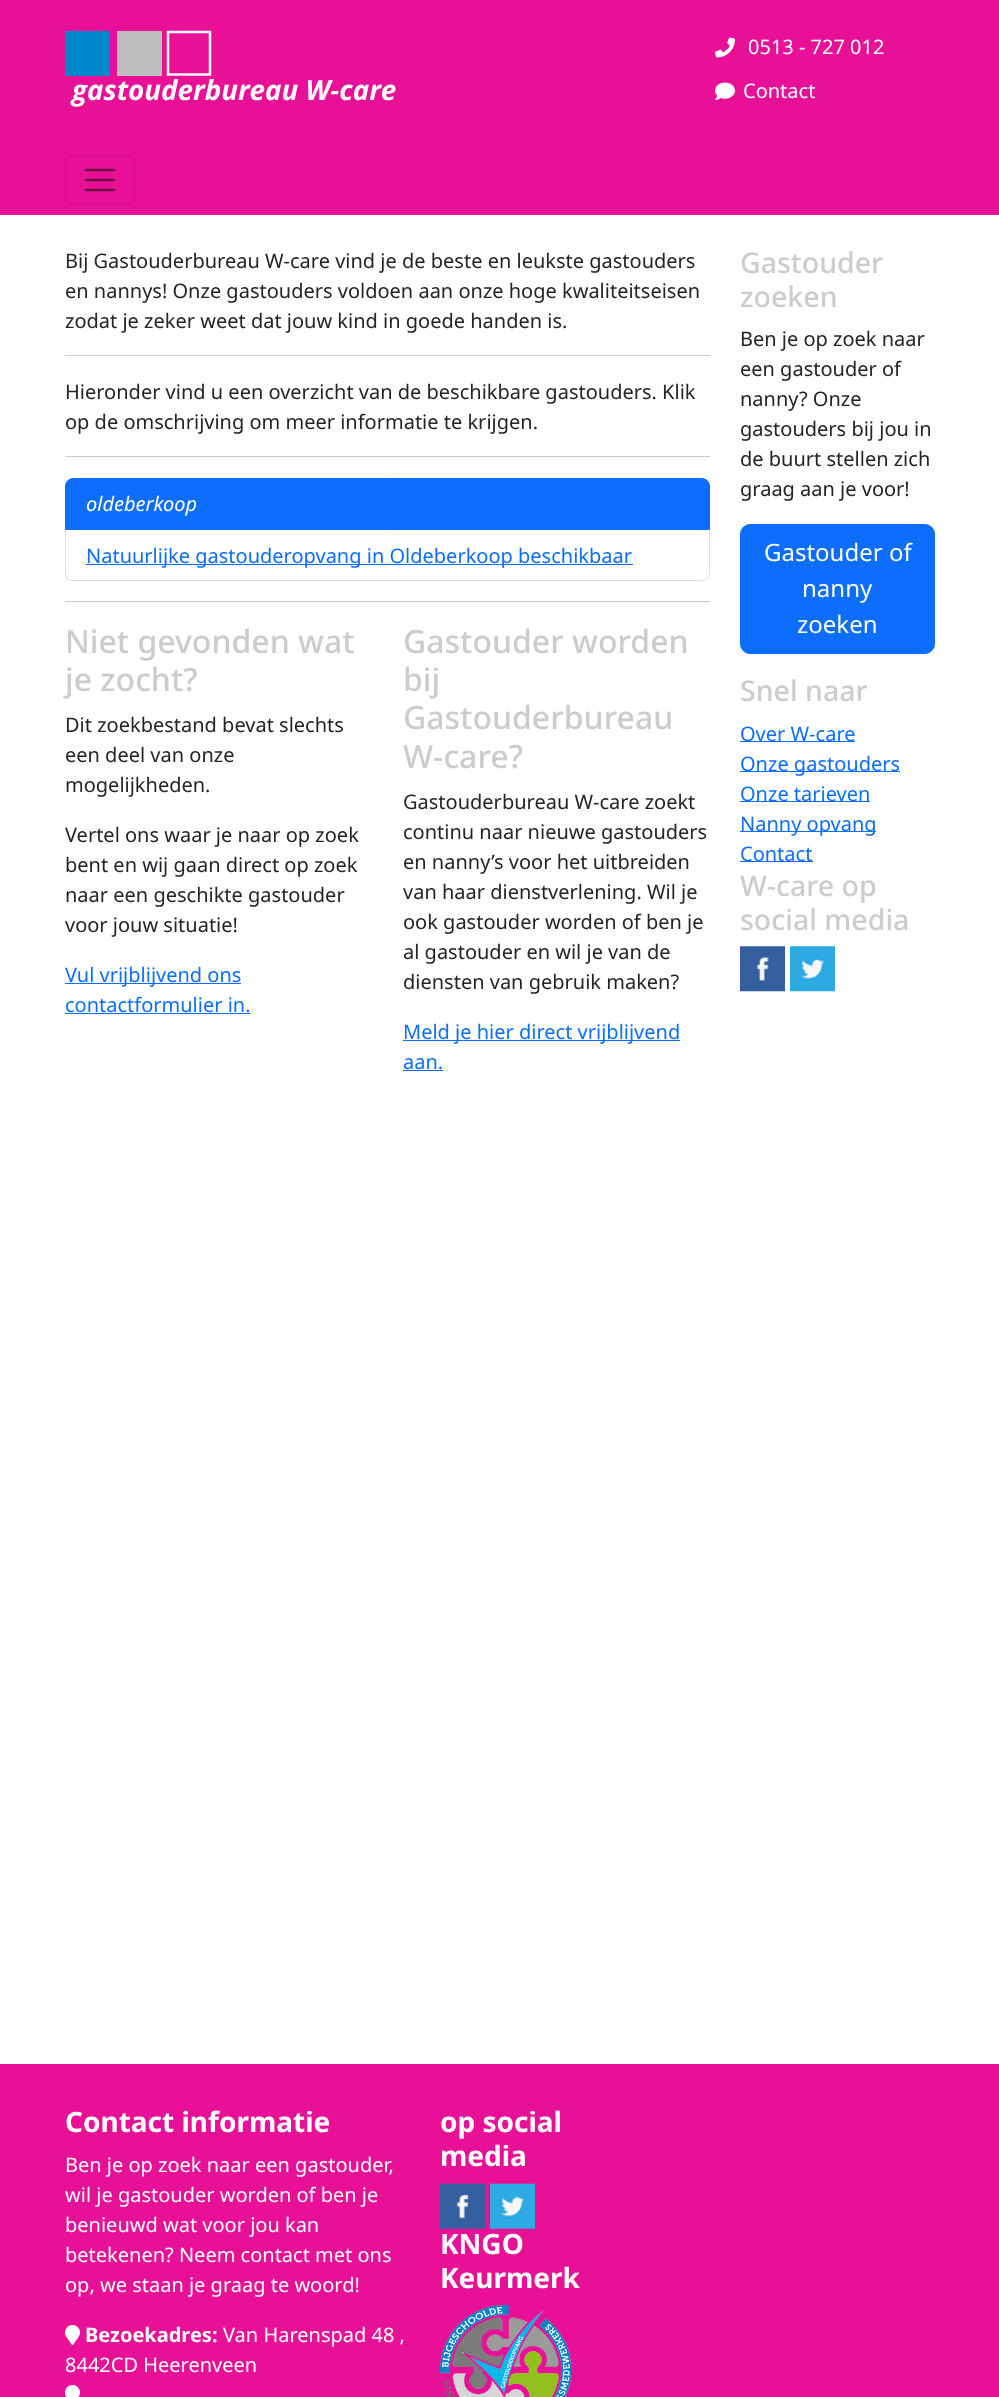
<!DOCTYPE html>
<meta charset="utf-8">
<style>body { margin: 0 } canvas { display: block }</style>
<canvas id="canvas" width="999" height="2397"></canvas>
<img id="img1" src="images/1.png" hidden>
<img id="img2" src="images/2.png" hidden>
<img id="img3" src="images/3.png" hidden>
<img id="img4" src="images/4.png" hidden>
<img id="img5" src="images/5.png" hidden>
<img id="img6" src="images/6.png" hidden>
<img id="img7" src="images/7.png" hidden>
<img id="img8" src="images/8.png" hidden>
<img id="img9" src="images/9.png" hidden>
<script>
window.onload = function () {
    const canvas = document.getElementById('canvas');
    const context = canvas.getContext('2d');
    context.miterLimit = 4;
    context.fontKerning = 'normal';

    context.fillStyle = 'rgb(255, 255, 255)';
    context.fillRect(0, 0, 999, 2397);
    context.fillStyle = 'rgb(231, 16, 150)';
    context.fillRect(0, 0, 999, 215);
    context.fillStyle = 'rgb(0, 136, 204)';
    context.fillRect(65, 31, 45, 45);
    context.fillStyle = 'rgb(190, 190, 190)';
    context.fillRect(117, 31, 45, 45);
    context.beginPath();
    context.moveTo(168, 32);
    context.lineTo(210, 32);
    context.lineTo(210, 74.5);
    context.lineTo(168, 74.5);
    context.closePath();
    context.strokeStyle = 'rgb(250, 250, 250)';
    context.lineWidth = 2.5;
    context.stroke();
    context.drawImage(document.getElementById('img1'), 715, 37, 20, 21);
    context.drawImage(document.getElementById('img2'), 715, 82, 20, 18);
    context.beginPath();
    context.roundRect(65.5, 155.5, 69, 49, 7.5);
    context.strokeStyle = 'rgb(208, 14, 135)';
    context.lineWidth = 1;
    context.stroke();
    context.beginPath();
    context.moveTo(86, 170);
    context.lineTo(114, 170);
    context.moveTo(86, 180);
    context.lineTo(114, 180);
    context.moveTo(86, 190);
    context.lineTo(114, 190);
    context.strokeStyle = 'rgb(104, 7, 68)';
    context.lineWidth = 2.5;
    context.lineCap = 'round';
    context.stroke();
    context.fillStyle = 'rgb(200, 201, 202)';
    context.fillRect(65, 355, 645, 1);
    context.fillRect(65, 456, 645, 1);
    context.fillStyle = 'rgb(13, 110, 253)';
    context.beginPath();
    context.roundRect(65.5, 478.5, 644, 51, [7.5, 7.5, 0, 0]);
    context.fill();
    context.strokeStyle = 'rgb(13, 110, 253)';
    context.lineWidth = 1;
    context.stroke();
    context.fillStyle = 'rgb(223, 223, 223)';
    context.beginPath();
    context.moveTo(65, 530);
    context.lineTo(710, 530);
    context.lineTo(710, 574);
    context.bezierCurveTo(710, 578, 707, 581, 702, 581);
    context.lineTo(72, 581);
    context.bezierCurveTo(68, 581, 65, 578, 65, 574);
    context.closePath();
    context.moveTo(66, 530);
    context.lineTo(709, 530);
    context.lineTo(709, 574);
    context.bezierCurveTo(709, 577, 706, 580, 702, 580);
    context.lineTo(72, 580);
    context.bezierCurveTo(69, 580, 66, 577, 66, 574);
    context.closePath();
    context.fill('evenodd');
    context.fillStyle = 'rgb(13, 110, 253)';
    context.fillRect(86, 564, 547, 1);
    context.fillStyle = 'rgb(200, 201, 202)';
    context.fillRect(65, 601, 645, 1);
    context.fillStyle = 'rgb(13, 110, 253)';
    context.fillRect(65, 983, 176, 1);
    context.fillRect(65, 1013, 185, 1);
    context.fillRect(403, 1040, 277, 1);
    context.fillRect(403, 1070, 40, 1);
    context.beginPath();
    context.roundRect(740.5, 524.5, 194, 129, 9.5);
    context.fill();
    context.stroke();
    context.fillRect(740, 741, 115, 1);
    context.fillRect(740, 771, 160, 1);
    context.fillRect(740, 801, 130, 1);
    context.fillRect(740, 831, 136, 1);
    context.fillRect(740, 861, 73, 1);
    context.drawImage(document.getElementById('img3'), 740, 946, 45, 46);
    context.drawImage(document.getElementById('img4'), 790, 946, 45, 46);
    context.fillStyle = 'rgb(231, 16, 150)';
    context.fillRect(0, 2064, 999, 333);
    context.drawImage(document.getElementById('img5'), 65, 2325, 15, 20);
    context.drawImage(document.getElementById('img6'), 65, 2385, 15, 12);
    context.drawImage(document.getElementById('img7'), 440, 2183, 45, 46);
    context.drawImage(document.getElementById('img8'), 490, 2183, 45, 46);
    context.drawImage(document.getElementById('img9'), 440, 2305, 132, 92);
    context.font = 'italic bold 27.75px Open Sans';
    context.fillStyle = 'rgb(255, 255, 255)';
    context.fillText('gastouderbureau W-care', 72, 100);
    context.font = '20px Noto Sans';
    context.fillText('0513 - 727 012', 748, 54);
    context.fillText('Contact', 743, 98);
    context.fillStyle = 'rgb(33, 37, 41)';
    context.fillText('Bij Gastouderbureau W-care vind je de beste en leukste gastouders', 65, 268);
    context.fillText('en nannys! Onze gastouders voldoen aan onze hoge kwaliteitseisen', 65, 298);
    context.fillText('zodat je zeker weet dat jouw kind in goede handen is.', 65, 328);
    context.fillText('Hieronder vind u een overzicht van de beschikbare gastouders. Klik', 65, 399);
    context.fillText('op de omschrijving om meer informatie te krijgen.', 65, 429);
    context.font = 'italic 20px Noto Sans';
    context.fillStyle = 'rgb(255, 255, 255)';
    context.fillText('oldeberkoop', 86, 511);
    context.font = '20px Noto Sans';
    context.fillStyle = 'rgb(13, 110, 253)';
    context.fillText('Natuurlijke gastouderopvang in Oldeberkoop beschikbaar', 86, 563);
    context.font = '500 32px Noto Sans';
    context.fillStyle = 'rgb(204, 204, 204)';
    context.fillText('Niet gevonden wat', 65, 653);
    context.fillText('je zocht?', 65, 691);
    context.font = '20px Noto Sans';
    context.fillStyle = 'rgb(33, 37, 41)';
    context.fillText('Dit zoekbestand bevat slechts', 65, 732);
    context.fillText('een deel van onze', 65, 762);
    context.fillText('mogelijkheden.', 65, 792);
    context.fillText('Vertel ons waar je naar op zoek', 65, 842);
    context.fillText('bent en wij gaan direct op zoek', 65, 872);
    context.fillText('naar een geschikte gastouder', 65, 902);
    context.fillText('voor jouw situatie!', 65, 932);
    context.fillStyle = 'rgb(13, 110, 253)';
    context.fillText('Vul vrijblijvend ons', 65, 982);
    context.fillText('contactformulier in.', 65, 1012);
    context.font = '500 32px Noto Sans';
    context.fillStyle = 'rgb(204, 204, 204)';
    context.fillText('Gastouder worden', 403, 653);
    context.fillText('bij', 403, 691);
    context.fillText('Gastouderbureau', 403, 729);
    context.fillText('W-care?', 403, 768);
    context.font = '20px Noto Sans';
    context.fillStyle = 'rgb(33, 37, 41)';
    context.fillText('Gastouderbureau W-care zoekt', 403, 809);
    context.fillText('continu naar nieuwe gastouders', 403, 839);
    context.fillText('en nanny’s voor het uitbreiden', 403, 869);
    context.fillText('van haar dienstverlening. Wil je', 403, 899);
    context.fillText('ook gastouder worden of ben je', 403, 929);
    context.fillText('al gastouder en wil je van de', 403, 959);
    context.fillText('diensten van gebruik maken?', 403, 989);
    context.fillStyle = 'rgb(13, 110, 253)';
    context.fillText('Meld je hier direct vrijblijvend', 403, 1039);
    context.fillText('aan.', 403, 1069);
    context.font = '500 28.5px Noto Sans';
    context.fillStyle = 'rgb(204, 204, 204)';
    context.fillText('Gastouder', 740, 273);
    context.fillText('zoeken', 740, 307);
    context.font = '20px Noto Sans';
    context.fillStyle = 'rgb(33, 37, 41)';
    context.fillText('Ben je op zoek naar', 740, 346);
    context.fillText('een gastouder of', 740, 376);
    context.fillText('nanny? Onze', 740, 406);
    context.fillText('gastouders bij jou in', 740, 436);
    context.fillText('de buurt stellen zich', 740, 466);
    context.fillText('graag aan je voor!', 740, 496);
    context.font = '24px Noto Sans';
    context.fillStyle = 'rgb(255, 255, 255)';
    context.fillText('Gastouder of', 764, 561);
    context.fillText('nanny', 802, 597);
    context.fillText('zoeken', 797, 633);
    context.font = '500 28.5px Noto Sans';
    context.fillStyle = 'rgb(204, 204, 204)';
    context.fillText('Snel naar', 740, 701);
    context.font = '20px Noto Sans';
    context.fillStyle = 'rgb(13, 110, 253)';
    context.fillText('Over W-care', 740, 741);
    context.fillText('Onze gastouders', 740, 771);
    context.fillText('Onze tarieven', 740, 801);
    context.fillText('Nanny opvang', 740, 831);
    context.fillText('Contact', 740, 861);
    context.font = '500 28.5px Noto Sans';
    context.fillStyle = 'rgb(204, 204, 204)';
    context.fillText('W-care op', 740, 896);
    context.fillText('social media', 740, 930);
    context.font = 'bold 28px Noto Sans';
    context.fillStyle = 'rgb(255, 255, 255)';
    context.fillText('Contact informatie', 65, 2132);
    context.font = '20px Noto Sans';
    context.fillText('Ben je op zoek naar een gastouder,', 65, 2172);
    context.fillText('wil je gastouder worden of ben je', 65, 2202);
    context.fillText('benieuwd wat voor jou kan', 65, 2232);
    context.fillText('betekenen? Neem contact met ons', 65, 2262);
    context.fillText('op, we staan je graag te woord!', 65, 2292);
    context.font = 'bold 20px Noto Sans';
    context.fillText('Bezoekadres:', 85, 2342);
    context.font = '20px Noto Sans';
    context.fillText('Van Harenspad 48 ,', 223, 2342);
    context.fillText('8442CD Heerenveen', 65, 2372);
    context.font = 'bold 28px Noto Sans';
    context.fillText('op social', 440, 2132);
    context.fillText('media', 440, 2166);
    context.fillText('KNGO', 440, 2254);
    context.fillText('Keurmerk', 440, 2288);
};
</script>
